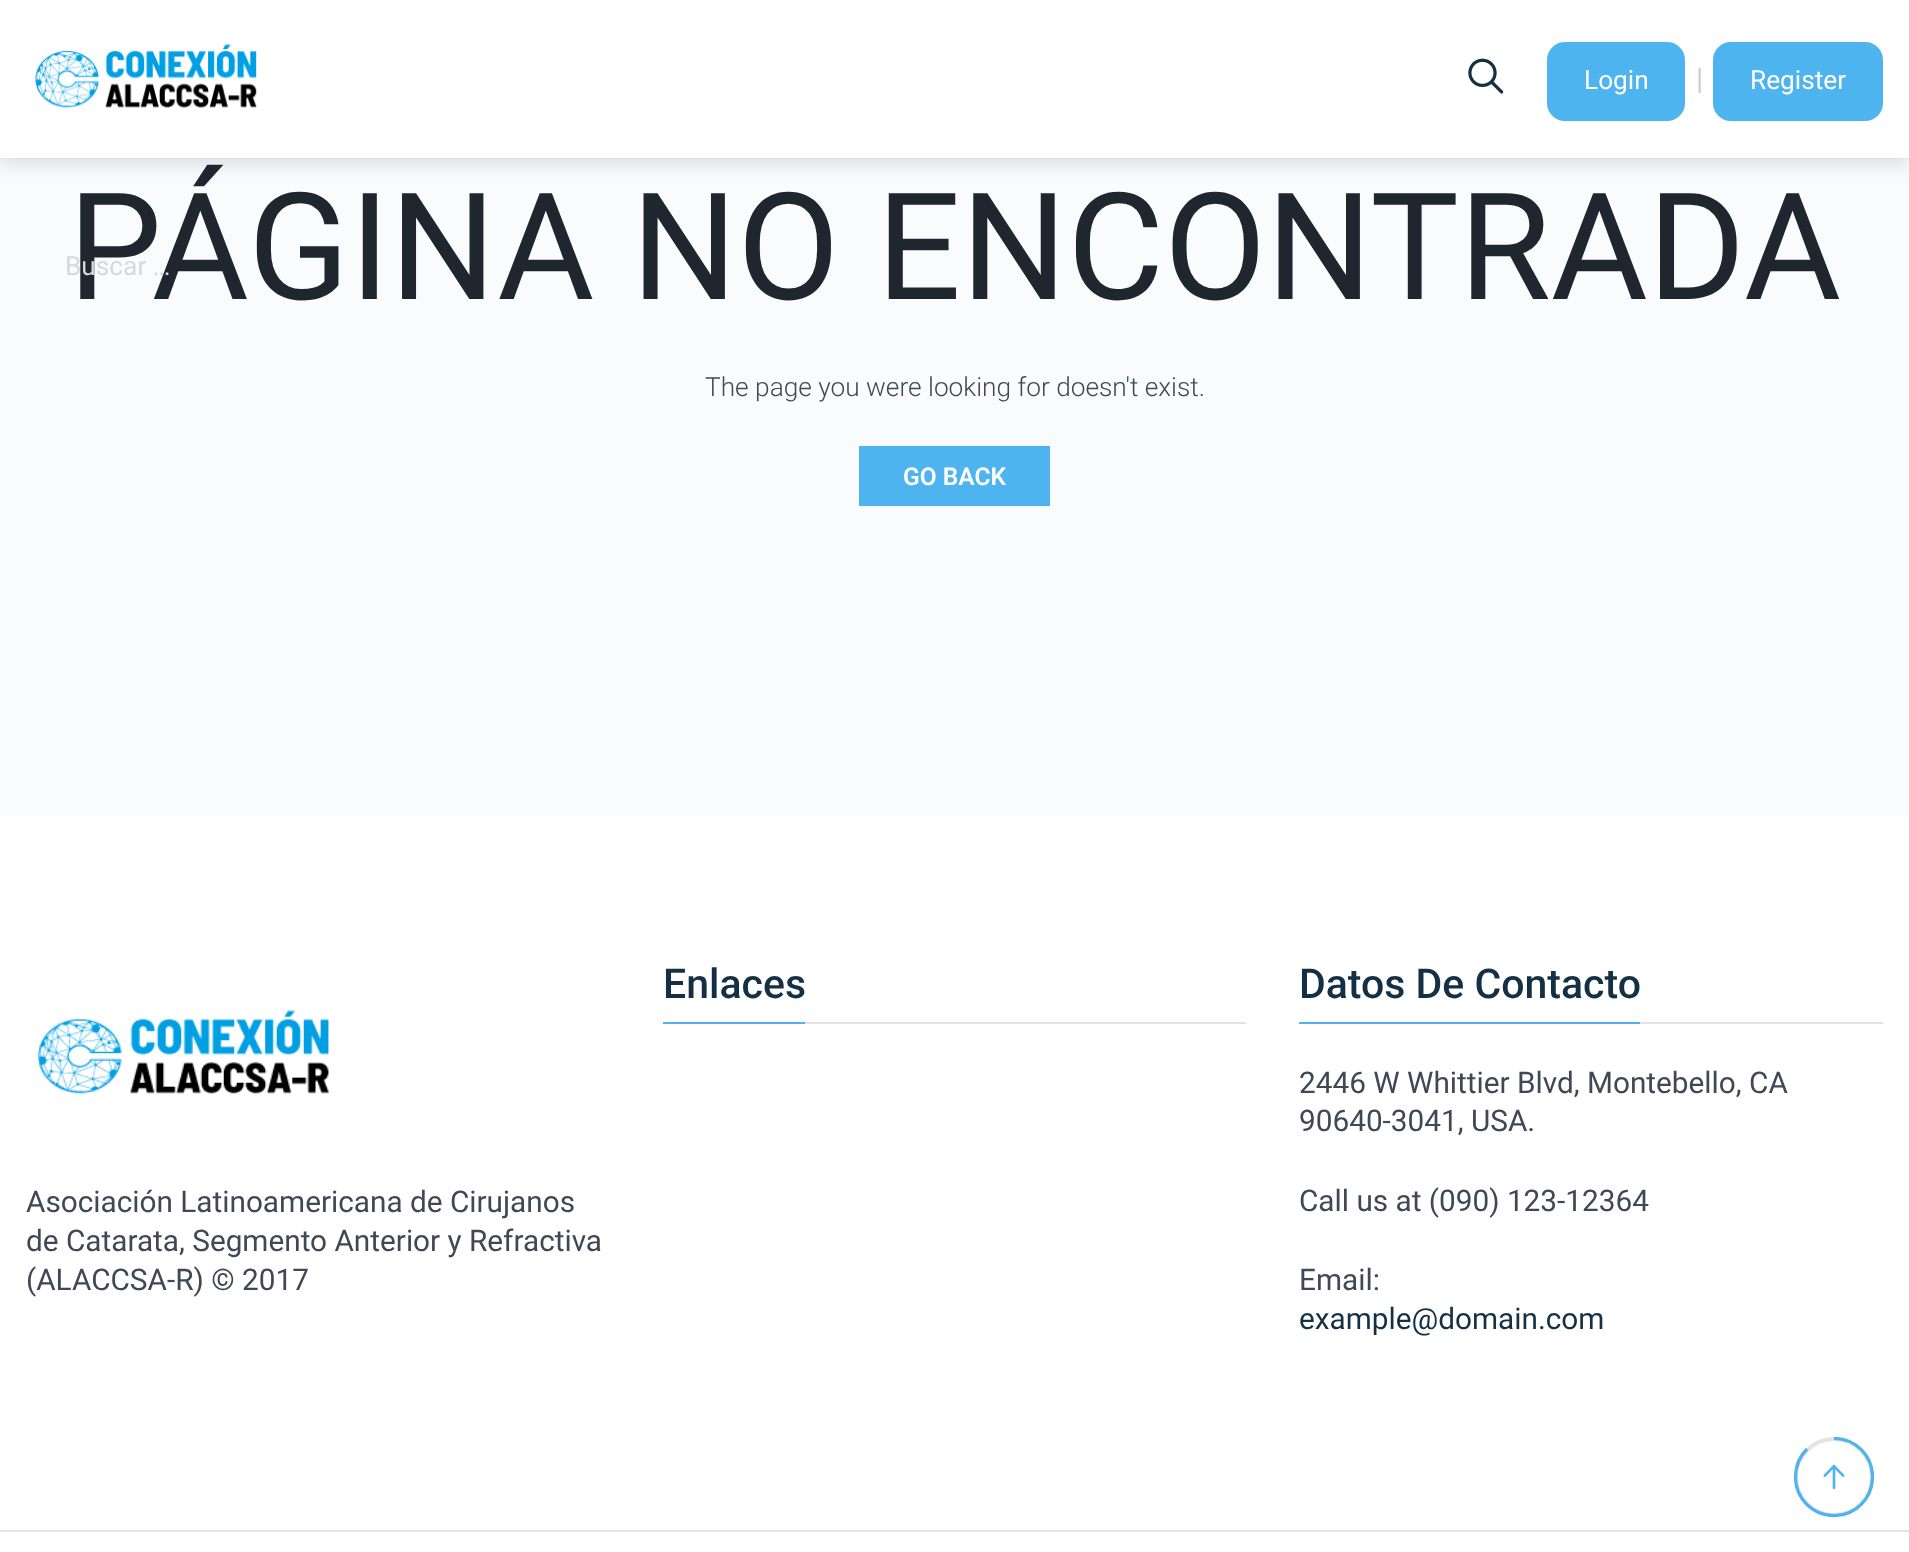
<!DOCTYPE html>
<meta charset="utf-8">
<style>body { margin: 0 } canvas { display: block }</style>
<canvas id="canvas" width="1909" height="1552"></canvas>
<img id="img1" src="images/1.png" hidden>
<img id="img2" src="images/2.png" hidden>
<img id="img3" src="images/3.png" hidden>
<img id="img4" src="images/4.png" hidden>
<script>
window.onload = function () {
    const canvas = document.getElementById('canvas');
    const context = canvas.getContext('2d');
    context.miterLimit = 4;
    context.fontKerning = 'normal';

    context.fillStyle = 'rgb(250, 251, 253)';
    context.fillRect(0, 0, 1909, 1552);
    context.fillStyle = 'rgba(65, 71, 107, 0.15)';
    context.filter = 'blur(9px)';
    context.beginPath();
    context.rect(0, 9, 1909, 157);
    context.fill();
    context.filter = 'none';
    context.fillStyle = 'rgba(139, 141, 158, 0.05)';
    context.fillRect(0, 158, 1909, 1);
    context.fillStyle = 'rgb(255, 255, 255)';
    context.fillRect(0, 0, 1909, 158);
    context.drawImage(document.getElementById('img1'), 35, 44, 222, 64);
    context.fillStyle = 'rgb(78, 180, 239)';
    context.beginPath();
    context.roundRect(1548, 43, 136, 77, 17);
    context.fill();
    context.strokeStyle = 'rgb(78, 180, 239)';
    context.lineWidth = 2;
    context.stroke();
    context.beginPath();
    context.roundRect(1714, 43, 168, 77, 17);
    context.fill();
    context.stroke();
    context.drawImage(document.getElementById('img2'), 1468, 58, 36, 36);
    context.fillRect(859, 446, 191, 60);
    context.fillStyle = 'rgb(255, 255, 255)';
    context.fillRect(0, 816, 1909, 714);
    context.drawImage(document.getElementById('img3'), 37, 1010, 293, 84);
    context.fillStyle = 'rgb(227, 227, 227)';
    context.fillRect(805, 1022, 441, 2);
    context.fillStyle = 'rgb(78, 180, 239)';
    context.fillRect(663, 1022, 142, 2);
    context.fillStyle = 'rgb(227, 227, 227)';
    context.fillRect(1640, 1022, 243, 2);
    context.fillStyle = 'rgb(78, 180, 239)';
    context.fillRect(1299, 1022, 341, 2);
    context.fillStyle = 'rgb(255, 255, 255)';
    context.fillRect(0, 1532, 1909, 20);
    context.fillStyle = 'rgb(227, 227, 227)';
    context.fillRect(0, 1530, 1909, 2);
    context.beginPath();
    context.arc(1834, 1477, 38, 0, 2 * Math.PI);
    context.strokeStyle = 'rgb(227, 227, 227)';
    context.lineWidth = 4;
    context.stroke();
    context.save();
    context.beginPath();
    context.rect(1794, 1437, 80, 80);
    context.clip();
    context.beginPath();
    context.moveTo(1834, 1438.5);
    context.bezierCurveTo(1855.5, 1438.5, 1872.5, 1455.5, 1872.5, 1477);
    context.bezierCurveTo(1872.5, 1498.5, 1855.5, 1515.5, 1834, 1515.5);
    context.bezierCurveTo(1812.5, 1515.5, 1795.5, 1498.5, 1795.5, 1477);
    context.bezierCurveTo(1795.5, 1466, 1800, 1456, 1807, 1449);
    context.strokeStyle = 'rgb(78, 180, 239)';
    context.lineWidth = 3.2;
    context.stroke();
    context.restore();
    context.drawImage(document.getElementById('img4'), 1823, 1464, 22, 26);
    context.font = '26.25px Roboto';
    context.fillStyle = 'rgb(255, 255, 255)';
    context.fillText('Login', 1584, 89);
    context.font = '29.75px Roboto';
    context.fillStyle = 'rgb(204, 204, 204)';
    context.fillText('|', 1696, 89);
    context.font = '26.25px Roboto';
    context.fillStyle = 'rgb(255, 255, 255)';
    context.fillText('Register', 1750, 89);
    context.font = '148.75px Roboto';
    context.fillStyle = 'rgb(32, 38, 46)';
    context.fillText('PÁGINA NO ENCONTRADA', 68, 299);
    context.font = '26.25px Roboto';
    context.fillStyle = 'rgb(214, 216, 219)';
    context.fillText('Buscar …', 65, 275);
    context.font = '300 26.25px Roboto';
    context.fillStyle = 'rgb(64, 72, 85)';
    context.fillText('The page you were looking for doesn\'t exist.', 705, 396);
    context.font = '600 24.5px Roboto';
    context.fillStyle = 'rgb(255, 255, 255)';
    context.fillText('GO BACK', 903, 485);
    context.font = '29.75px Roboto';
    context.fillStyle = 'rgb(64, 72, 85)';
    context.fillText('Asociación Latinoamericana de Cirujanos', 26, 1212);
    context.fillText('de Catarata, Segmento Anterior y Refractiva', 26, 1251);
    context.fillText('(ALACCSA-R) © 2017', 26, 1290);
    context.font = '500 41px Roboto';
    context.fillStyle = 'rgb(21, 48, 69)';
    context.fillText('Enlaces', 663, 998);
    context.fillText('Datos De Contacto', 1299, 998);
    context.font = '29.75px Roboto';
    context.fillStyle = 'rgb(64, 72, 85)';
    context.fillText('2446 W Whittier Blvd, Montebello, CA', 1299, 1093);
    context.fillText('90640-3041, USA.', 1299, 1131);
    context.fillText('Call us at (090) 123-12364', 1299, 1211);
    context.fillText('Email:', 1299, 1290);
    context.fillStyle = 'rgb(21, 48, 69)';
    context.fillText('example@domain.com', 1299, 1329);
};
</script>
